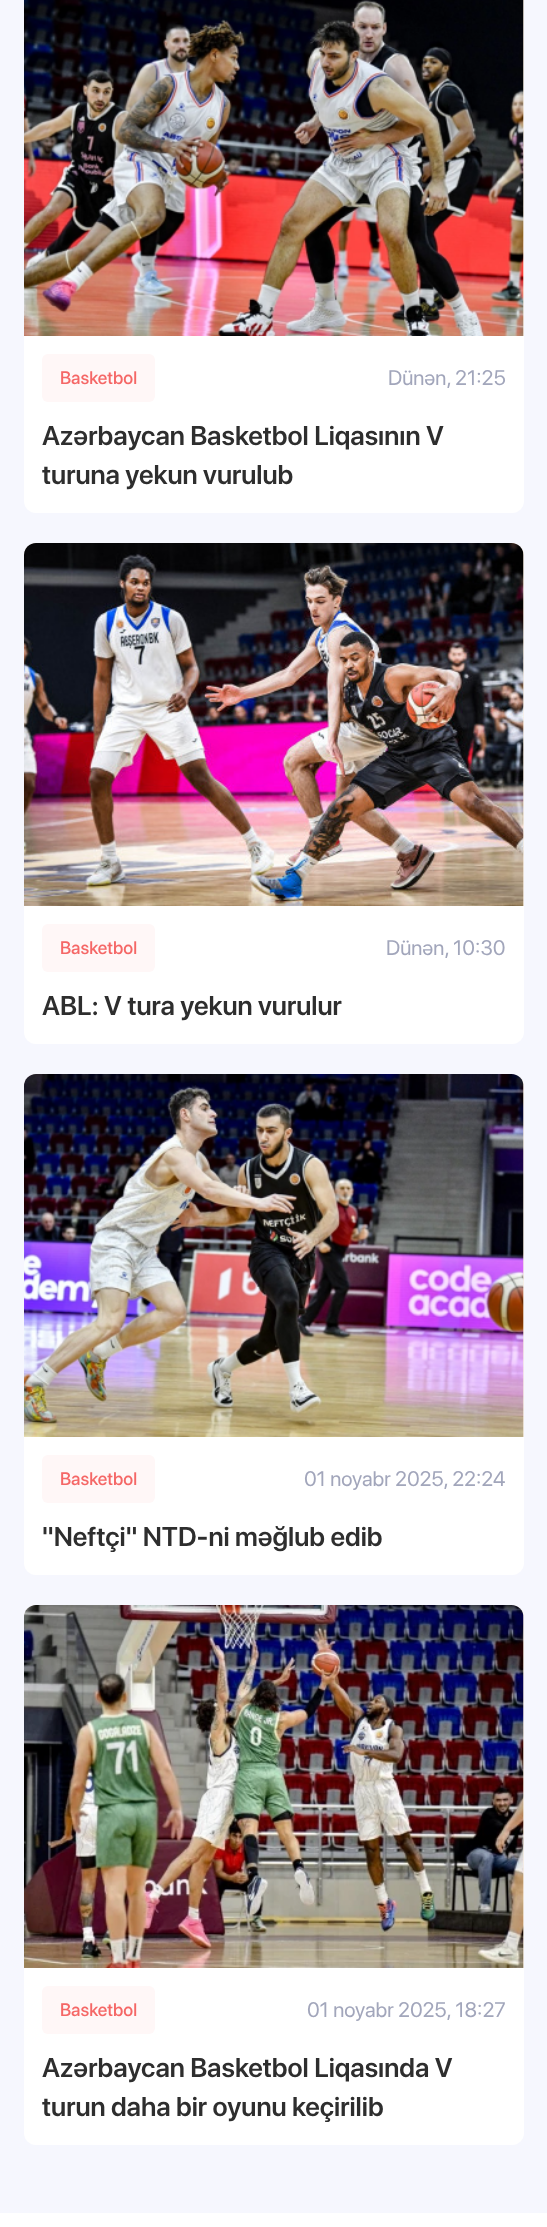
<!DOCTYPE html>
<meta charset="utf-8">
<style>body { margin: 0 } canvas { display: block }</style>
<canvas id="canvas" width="547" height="2227"></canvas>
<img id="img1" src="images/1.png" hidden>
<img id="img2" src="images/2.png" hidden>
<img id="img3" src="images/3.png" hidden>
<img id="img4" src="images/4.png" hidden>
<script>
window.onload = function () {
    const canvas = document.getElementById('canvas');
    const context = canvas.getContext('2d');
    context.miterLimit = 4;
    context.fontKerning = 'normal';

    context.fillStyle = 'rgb(246, 247, 254)';
    context.fillRect(0, 0, 547, 2227);
    context.fillStyle = 'rgb(249, 241, 231)';
    context.fillRect(523, 0, 1, 336);
    context.drawImage(document.getElementById('img1'), 24, 0, 500, 336);
    context.fillStyle = 'rgb(255, 255, 255)';
    context.beginPath();
    context.roundRect(24, 336, 500, 177, [0, 0, 12, 12]);
    context.fill();
    context.fillStyle = 'rgb(255, 247, 247)';
    context.beginPath();
    context.roundRect(42, 354, 113, 48, 6);
    context.fill();
    context.fillStyle = 'rgb(249, 241, 231)';
    context.beginPath();
    context.roundRect(24, 543, 500, 363, [12, 12, 0, 0]);
    context.fill();
    context.drawImage(document.getElementById('img2'), 24, 543, 500, 363);
    context.fillStyle = 'rgb(255, 255, 255)';
    context.beginPath();
    context.roundRect(24, 906, 500, 138, [0, 0, 12, 12]);
    context.fill();
    context.fillStyle = 'rgb(255, 247, 247)';
    context.beginPath();
    context.roundRect(42, 924, 113, 48, 6);
    context.fill();
    context.fillStyle = 'rgb(249, 241, 231)';
    context.beginPath();
    context.roundRect(24, 1074, 500, 363, [12, 12, 0, 0]);
    context.fill();
    context.drawImage(document.getElementById('img3'), 24, 1074, 500, 363);
    context.fillStyle = 'rgb(255, 255, 255)';
    context.beginPath();
    context.roundRect(24, 1437, 500, 138, [0, 0, 12, 12]);
    context.fill();
    context.fillStyle = 'rgb(255, 247, 247)';
    context.beginPath();
    context.roundRect(42, 1455, 113, 48, 6);
    context.fill();
    context.fillStyle = 'rgb(249, 241, 231)';
    context.beginPath();
    context.roundRect(24, 1605, 500, 363, [12, 12, 0, 0]);
    context.fill();
    context.drawImage(document.getElementById('img4'), 24, 1605, 500, 363);
    context.fillStyle = 'rgb(255, 255, 255)';
    context.beginPath();
    context.roundRect(24, 1968, 500, 177, [0, 0, 12, 12]);
    context.fill();
    context.fillStyle = 'rgb(255, 247, 247)';
    context.beginPath();
    context.roundRect(42, 1986, 113, 48, 6);
    context.fill();
    context.fillStyle = 'rgb(255, 255, 255)';
    context.fillRect(0, 2213, 547, 14);
    context.font = '500 18px SF Pro Display';
    context.fillStyle = 'rgb(245, 103, 102)';
    context.fillText('Basketbol', 60, 384);
    context.font = '21px SF Pro Display';
    context.fillStyle = 'rgb(162, 166, 187)';
    context.fillText('Dünən, 21:25', 388, 385);
    context.font = '600 27px SF Pro Display';
    context.fillStyle = 'rgb(46, 46, 46)';
    context.fillText('Azərbaycan Basketbol Liqasının V', 42, 445);
    context.fillText('turuna yekun vurulub', 42, 484);
    context.font = '500 18px SF Pro Display';
    context.fillStyle = 'rgb(245, 103, 102)';
    context.fillText('Basketbol', 60, 954);
    context.font = '21px SF Pro Display';
    context.fillStyle = 'rgb(162, 166, 187)';
    context.fillText('Dünən, 10:30', 386, 955);
    context.font = '600 27px SF Pro Display';
    context.fillStyle = 'rgb(46, 46, 46)';
    context.fillText('ABL: V tura yekun vurulur', 42, 1015);
    context.font = '500 18px SF Pro Display';
    context.fillStyle = 'rgb(245, 103, 102)';
    context.fillText('Basketbol', 60, 1485);
    context.font = '21px SF Pro Display';
    context.fillStyle = 'rgb(162, 166, 187)';
    context.fillText('01 noyabr 2025, 22:24', 304, 1486);
    context.font = '600 27px SF Pro Display';
    context.fillStyle = 'rgb(46, 46, 46)';
    context.fillText('"Neftçi" NTD-ni məğlub edib', 42, 1546);
    context.font = '500 18px SF Pro Display';
    context.fillStyle = 'rgb(245, 103, 102)';
    context.fillText('Basketbol', 60, 2016);
    context.font = '21px SF Pro Display';
    context.fillStyle = 'rgb(162, 166, 187)';
    context.fillText('01 noyabr 2025, 18:27', 307, 2017);
    context.font = '600 27px SF Pro Display';
    context.fillStyle = 'rgb(46, 46, 46)';
    context.fillText('Azərbaycan Basketbol Liqasında V', 42, 2077);
    context.fillText('turun daha bir oyunu keçirilib', 42, 2116);
};
</script>
